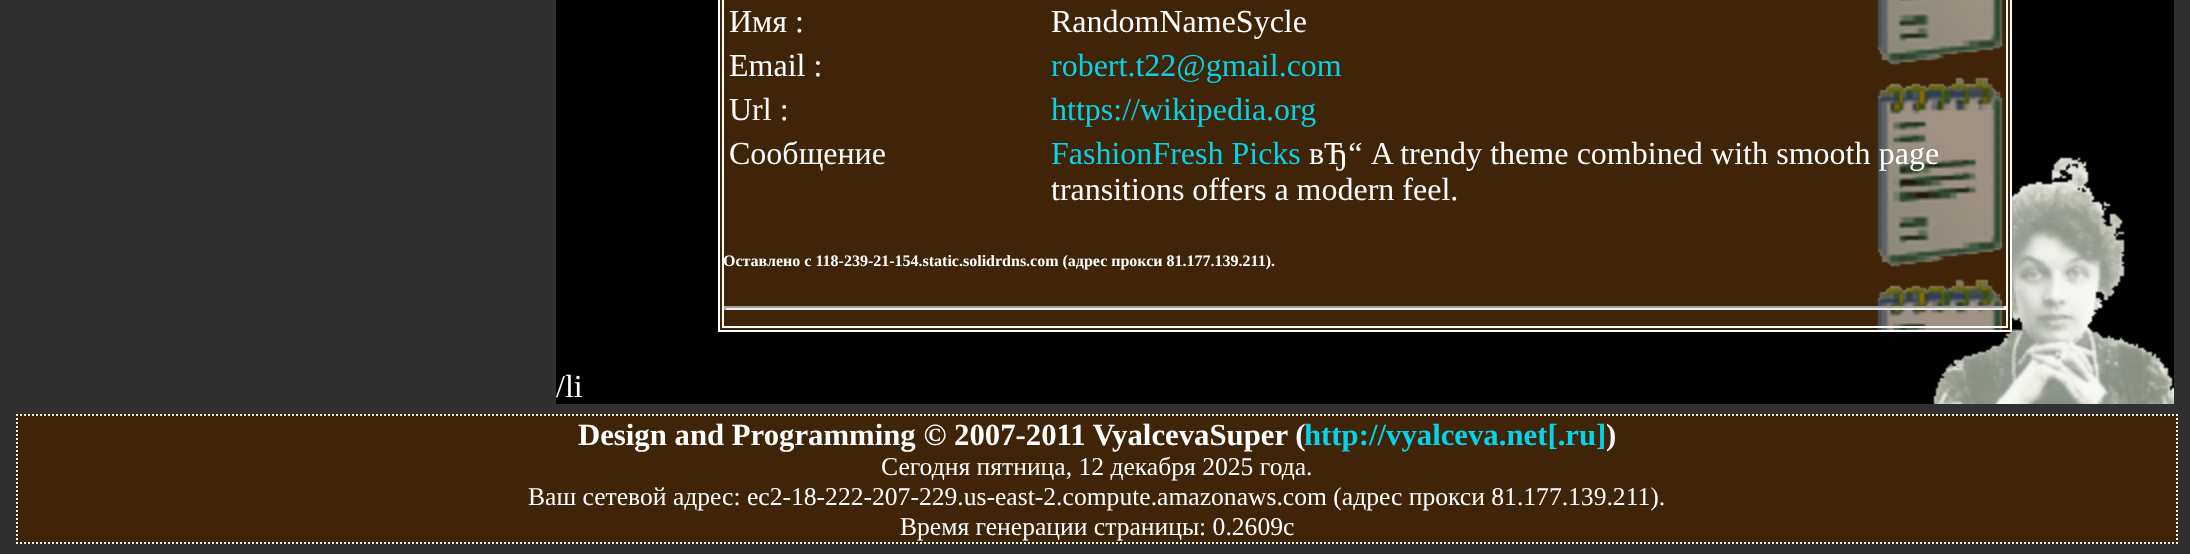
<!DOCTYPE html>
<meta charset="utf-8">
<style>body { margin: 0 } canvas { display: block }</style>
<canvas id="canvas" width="2190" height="554"></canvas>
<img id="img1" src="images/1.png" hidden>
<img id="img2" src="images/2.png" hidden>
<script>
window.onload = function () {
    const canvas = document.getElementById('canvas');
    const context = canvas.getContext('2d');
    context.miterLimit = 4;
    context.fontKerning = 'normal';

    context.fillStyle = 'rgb(48, 48, 48)';
    context.fillRect(0, 0, 2190, 554);
    context.fillStyle = 'rgb(0, 0, 0)';
    context.fillRect(556, 0, 1618, 404);
    context.drawImage(document.getElementById('img1'), 1933, 157, 241, 247);
    context.fillStyle = 'rgb(64, 36, 8)';
    context.fillRect(720, 0, 1290, 330);
    context.drawImage(document.getElementById('img2'), 1877, 0, 126, 330);
    context.strokeStyle = 'rgb(255, 255, 255)';
    context.lineWidth = 2;
    context.strokeRect(719, -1, 1292, 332);
    context.strokeRect(723, -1, 1284, 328);
    context.fillStyle = 'rgb(159, 159, 159)';
    context.fillRect(724, 306, 1282, 2);
    context.fillStyle = 'rgb(238, 238, 238)';
    context.fillRect(2004, 306, 2, 4);
    context.fillRect(724, 308, 1282, 2);
    context.fillStyle = 'rgb(159, 159, 159)';
    context.fillRect(724, 306, 2, 4);
    context.fillStyle = 'rgb(64, 36, 8)';
    context.fillRect(16, 414, 2162, 130);
    context.beginPath();
    context.moveTo(16, 415);
    context.lineTo(2178, 415);
    context.setLineDash([2, 2]);
    context.stroke();
    context.beginPath();
    context.moveTo(2177, 414);
    context.lineTo(2177, 544);
    context.stroke();
    context.beginPath();
    context.moveTo(16, 543);
    context.lineTo(2178, 543);
    context.stroke();
    context.beginPath();
    context.moveTo(17, 414);
    context.lineTo(17, 544);
    context.stroke();
    context.font = '32px Liberation Serif';
    context.fillStyle = 'rgb(255, 255, 255)';
    context.fillText('Имя :', 729, 32);
    context.fillText('RandomNameSycle', 1051, 32);
    context.fillText('Email :', 729, 76);
    context.fillStyle = 'rgb(5, 211, 233)';
    context.fillText('robert.t22@gmail.com', 1051, 76);
    context.fillStyle = 'rgb(255, 255, 255)';
    context.fillText('Url :', 729, 120);
    context.fillStyle = 'rgb(5, 211, 233)';
    context.fillText('https://wikipedia.org', 1051, 120);
    context.fillStyle = 'rgb(255, 255, 255)';
    context.fillText('Сообщение', 729, 164);
    context.fillStyle = 'rgb(5, 211, 233)';
    context.fillText('FashionFresh Picks', 1051, 164);
    context.wordSpacing = '0.25px';
    context.fillStyle = 'rgb(255, 255, 255)';
    context.fillText('вЂ“ A trendy theme combined with smooth page', 1309, 164);
    context.wordSpacing = '0px';
    context.fillText('transitions offers a modern feel.', 1051, 200);
    context.font = 'bold 16px Liberation Serif';
    context.fillText('Оставлено с 118-239-21-154.static.solidrdns.com (адрес прокси 81.177.139.211).', 723, 266);
    context.font = '32px Liberation Serif';
    context.fillText('/li', 556, 397);
    context.font = 'bold 30.75px Liberation Serif';
    context.fillText('Design and Programming © 2007-2011 VyalcevaSuper (', 578, 445);
    context.fillStyle = 'rgb(5, 211, 233)';
    context.fillText('http://vyalceva.net[.ru]', 1304, 445);
    context.fillStyle = 'rgb(255, 255, 255)';
    context.fillText(')', 1606, 445);
    context.font = '25.6px Liberation Serif';
    context.fillText('Сегодня пятница, 12 декабря 2025 года.', 881, 475);
    context.fillText('Ваш сетевой адрес: ec2-18-222-207-229.us-east-2.compute.amazonaws.com (адрес прокси 81.177.139.211).', 528, 505);
    context.fillText('Время генерации страницы: 0.2609c', 900, 535);
};
</script>
